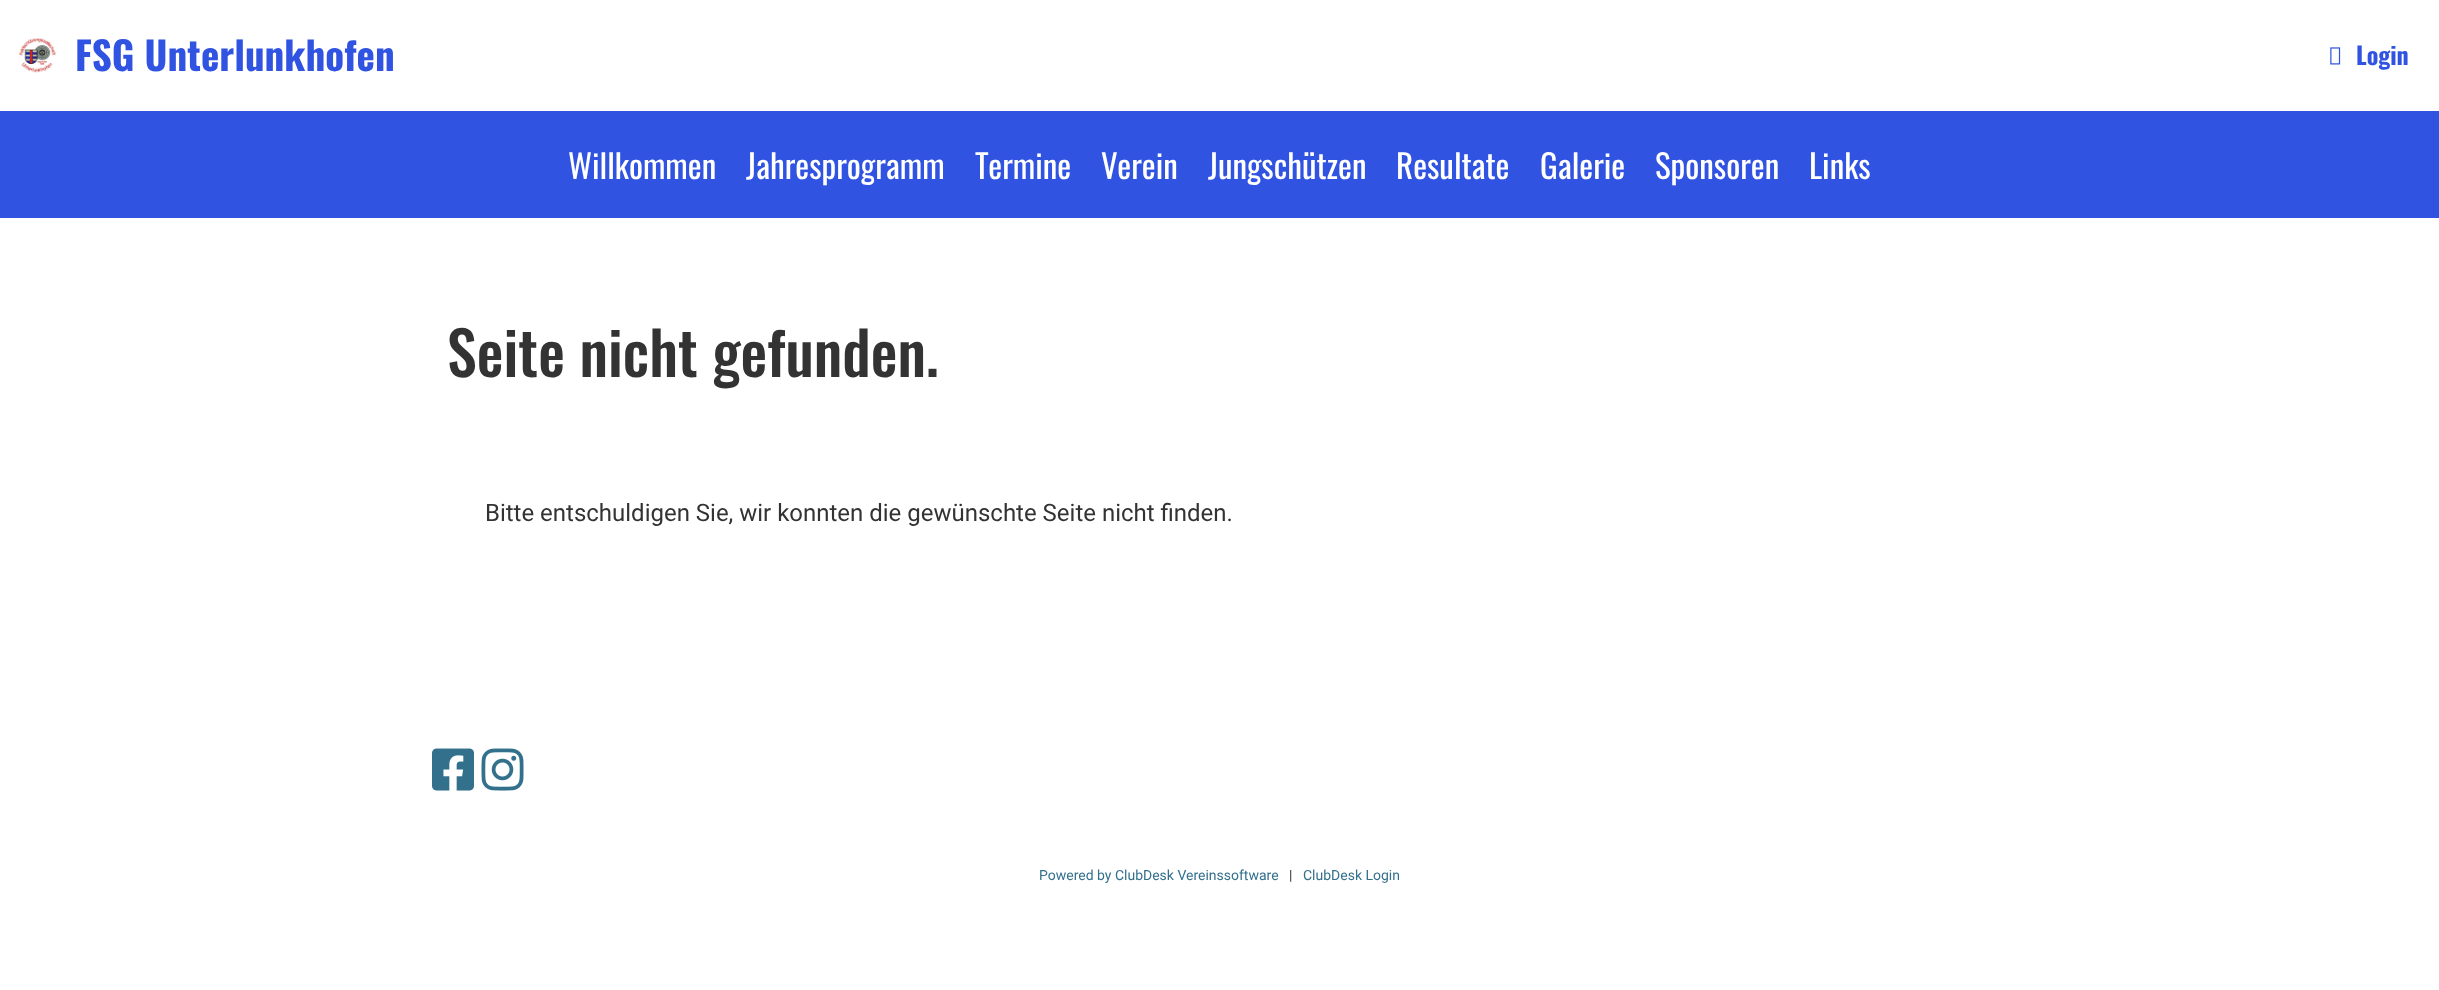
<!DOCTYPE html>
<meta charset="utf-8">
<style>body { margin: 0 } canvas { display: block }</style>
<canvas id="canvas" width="2439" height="990"></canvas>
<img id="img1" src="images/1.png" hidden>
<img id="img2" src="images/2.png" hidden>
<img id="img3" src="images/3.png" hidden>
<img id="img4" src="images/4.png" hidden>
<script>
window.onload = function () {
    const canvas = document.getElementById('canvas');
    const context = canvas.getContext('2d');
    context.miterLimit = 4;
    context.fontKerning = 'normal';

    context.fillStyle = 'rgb(255, 255, 255)';
    context.fillRect(0, 0, 2439, 990);
    context.drawImage(document.getElementById('img1'), 18, 38, 39, 35);
    context.drawImage(document.getElementById('img2'), 2330, 47, 11, 18);
    context.fillStyle = 'rgb(49, 83, 226)';
    context.fillRect(0, 111, 2439, 107);
    context.drawImage(document.getElementById('img3'), 432, 748, 42, 43);
    context.drawImage(document.getElementById('img4'), 481, 748, 43, 43);
    context.font = 'bold 39px Oswald';
    context.fillText('FSG Unterlunkhofen', 75, 71);
    context.font = 'bold 24px Oswald';
    context.fillText('Login', 2356, 65);
    context.font = '33px Oswald';
    context.fillStyle = 'rgb(255, 255, 255)';
    context.fillText('Willkommen', 568, 179);
    context.fillText('Jahresprogramm', 746, 179);
    context.fillText('Termine', 975, 179);
    context.fillText('Verein', 1101, 179);
    context.fillText('Jungschützen', 1208, 179);
    context.fillText('Resultate', 1396, 179);
    context.fillText('Galerie', 1540, 179);
    context.fillText('Sponsoren', 1655, 179);
    context.fillText('Links', 1809, 179);
    context.font = '500 60px Oswald';
    context.fillStyle = 'rgb(51, 51, 51)';
    context.fillText('Seite nicht gefunden.', 447, 377);
    context.font = '24px Roboto';
    context.fillText('Bitte entschuldigen Sie, wir konnten die gewünschte Seite nicht finden.', 485, 521);
    context.font = '14px Roboto';
    context.fillStyle = 'rgb(51, 112, 140)';
    context.fillText('Powered by ClubDesk Vereinssoftware', 1039, 880);
    context.fillStyle = 'rgb(51, 51, 51)';
    context.fillText('|', 1289, 880);
    context.fillStyle = 'rgb(51, 112, 140)';
    context.fillText('ClubDesk Login', 1303, 880);
};
</script>
